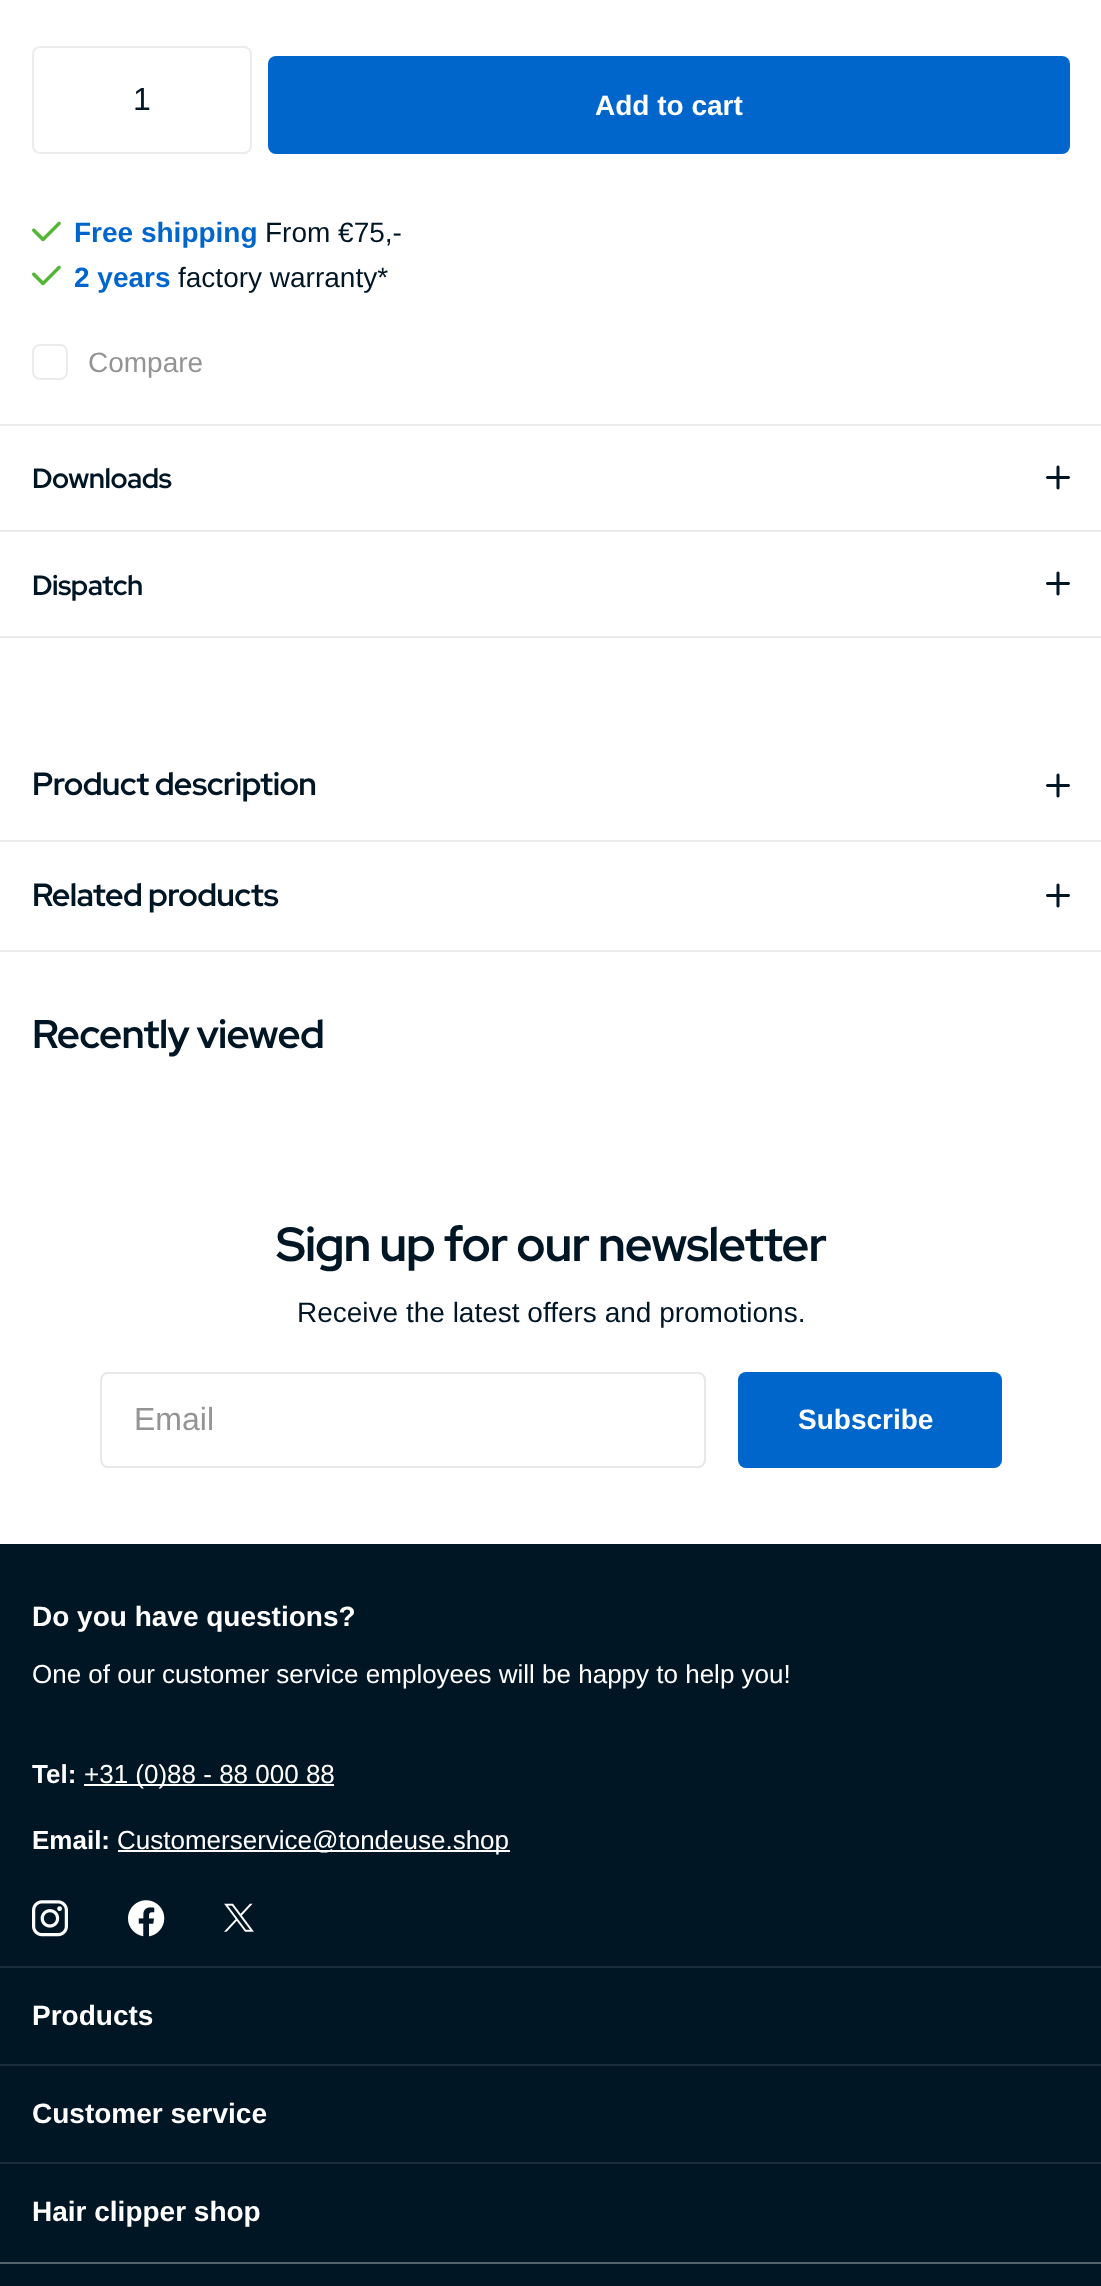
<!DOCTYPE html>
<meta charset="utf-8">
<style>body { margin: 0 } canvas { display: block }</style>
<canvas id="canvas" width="1101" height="2286"></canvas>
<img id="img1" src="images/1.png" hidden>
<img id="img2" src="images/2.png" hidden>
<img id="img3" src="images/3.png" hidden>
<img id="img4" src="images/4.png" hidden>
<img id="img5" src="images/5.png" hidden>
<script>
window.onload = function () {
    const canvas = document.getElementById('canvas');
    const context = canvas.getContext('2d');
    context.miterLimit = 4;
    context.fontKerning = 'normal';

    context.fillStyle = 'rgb(255, 255, 255)';
    context.fillRect(0, 0, 1101, 2286);
    context.beginPath();
    context.roundRect(33, 47, 218, 106, 7);
    context.strokeStyle = 'rgb(236, 236, 236)';
    context.lineWidth = 2;
    context.stroke();
    context.fillStyle = 'rgb(0, 102, 204)';
    context.beginPath();
    context.roundRect(268, 56, 802, 98, 8);
    context.fill();
    context.drawImage(document.getElementById('img1'), 32, 221, 29, 21);
    context.drawImage(document.getElementById('img1'), 32, 265, 29, 21);
    context.beginPath();
    context.roundRect(33, 345, 34, 34, 7);
    context.stroke();
    context.fillStyle = 'rgb(236, 236, 236)';
    context.fillRect(0, 424, 1101, 2);
    context.fillRect(0, 530, 1101, 2);
    context.drawImage(document.getElementById('img2'), 1046, 465, 24, 25);
    context.drawImage(document.getElementById('img2'), 1046, 571, 24, 25);
    context.fillRect(0, 636, 1101, 2);
    context.drawImage(document.getElementById('img2'), 1046, 773, 24, 25);
    context.fillRect(0, 840, 1101, 2);
    context.drawImage(document.getElementById('img2'), 1046, 883, 24, 25);
    context.fillRect(0, 950, 1101, 2);
    context.beginPath();
    context.roundRect(101, 1373, 604, 94, 7);
    context.strokeStyle = 'rgb(230, 232, 233)';
    context.stroke();
    context.fillStyle = 'rgb(0, 102, 204)';
    context.beginPath();
    context.roundRect(738, 1372, 264, 96, 8);
    context.fill();
    context.fillStyle = 'rgb(1, 22, 37)';
    context.fillRect(0, 1544, 1101, 742);
    context.fillStyle = 'rgb(255, 255, 255)';
    context.fillRect(84, 1784, 250, 2);
    context.fillRect(118, 1850, 392, 2);
    context.drawImage(document.getElementById('img3'), 32, 1900, 36, 37);
    context.drawImage(document.getElementById('img4'), 128, 1900, 37, 37);
    context.drawImage(document.getElementById('img5'), 224, 1903, 30, 29);
    context.fillStyle = 'rgb(26, 45, 59)';
    context.fillRect(0, 1966, 1101, 2);
    context.fillRect(0, 2064, 1101, 2);
    context.fillRect(0, 2162, 1101, 2);
    context.fillStyle = 'rgb(85, 99, 109)';
    context.fillRect(0, 2262, 1101, 2);
    context.font = '32px Liberation Sans';
    context.fillStyle = 'rgb(1, 22, 37)';
    context.fillText('1', 133, 110);
    context.font = 'bold 28px Liberation Sans';
    context.fillStyle = 'rgb(255, 255, 255)';
    context.fillText('Add to cart', 595, 115);
    context.fillStyle = 'rgb(0, 102, 204)';
    context.fillText('Free shipping', 74, 242);
    context.font = '28px Liberation Sans';
    context.fillStyle = 'rgb(1, 22, 37)';
    context.fillText('From €75,-', 265, 242);
    context.font = 'bold 28px Liberation Sans';
    context.fillStyle = 'rgb(0, 102, 204)';
    context.fillText('2 years', 74, 287);
    context.font = '28px Liberation Sans';
    context.fillStyle = 'rgb(1, 22, 37)';
    context.fillText('factory warranty*', 178, 287);
    context.fillStyle = 'rgb(148, 148, 148)';
    context.fillText('Compare', 88, 372);
    context.letterSpacing = '-0.5px';
    context.font = 'bold 28px Red Hat Display';
    context.fillStyle = 'rgb(1, 22, 37)';
    context.fillText('Downloads', 32, 488);
    context.fillText('Dispatch', 32, 595);
    context.letterSpacing = '-0.6px';
    context.font = 'bold 32px Red Hat Display';
    context.fillText('Product description', 32, 795);
    context.fillText('Related products', 32, 906);
    context.letterSpacing = '-0.75px';
    context.font = 'bold 40px Red Hat Display';
    context.fillText('Recently viewed', 32, 1048);
    context.letterSpacing = '-0.95px';
    context.font = 'bold 48px Red Hat Display';
    context.fillText('Sign up for our newsletter', 276, 1261);
    context.letterSpacing = '0px';
    context.font = '28px Liberation Sans';
    context.fillText('Receive the latest offers and promotions.', 297, 1322);
    context.font = '32px Liberation Sans';
    context.fillStyle = 'rgb(148, 148, 148)';
    context.fillText('Email', 134, 1430);
    context.font = 'bold 28px Liberation Sans';
    context.fillStyle = 'rgb(255, 255, 255)';
    context.fillText('Subscribe', 798, 1429);
    context.fillText('Do you have questions?', 32, 1626);
    context.font = '26px Liberation Sans';
    context.fillText('One of our customer service employees will be happy to help you!', 32, 1683);
    context.font = 'bold 26px Liberation Sans';
    context.fillText('Tel:', 32, 1783);
    context.font = '26px Liberation Sans';
    context.fillText('+31 (0)88 - 88 000 88', 84, 1783);
    context.font = 'bold 26px Liberation Sans';
    context.fillText('Email:', 32, 1849);
    context.font = '26px Liberation Sans';
    context.fillText('Customerservice@tondeuse.shop', 117, 1849);
    context.font = 'bold 28px Liberation Sans';
    context.fillText('Products', 32, 2025);
    context.fillText('Customer service', 32, 2123);
    context.fillText('Hair clipper shop', 32, 2221);
};
</script>
